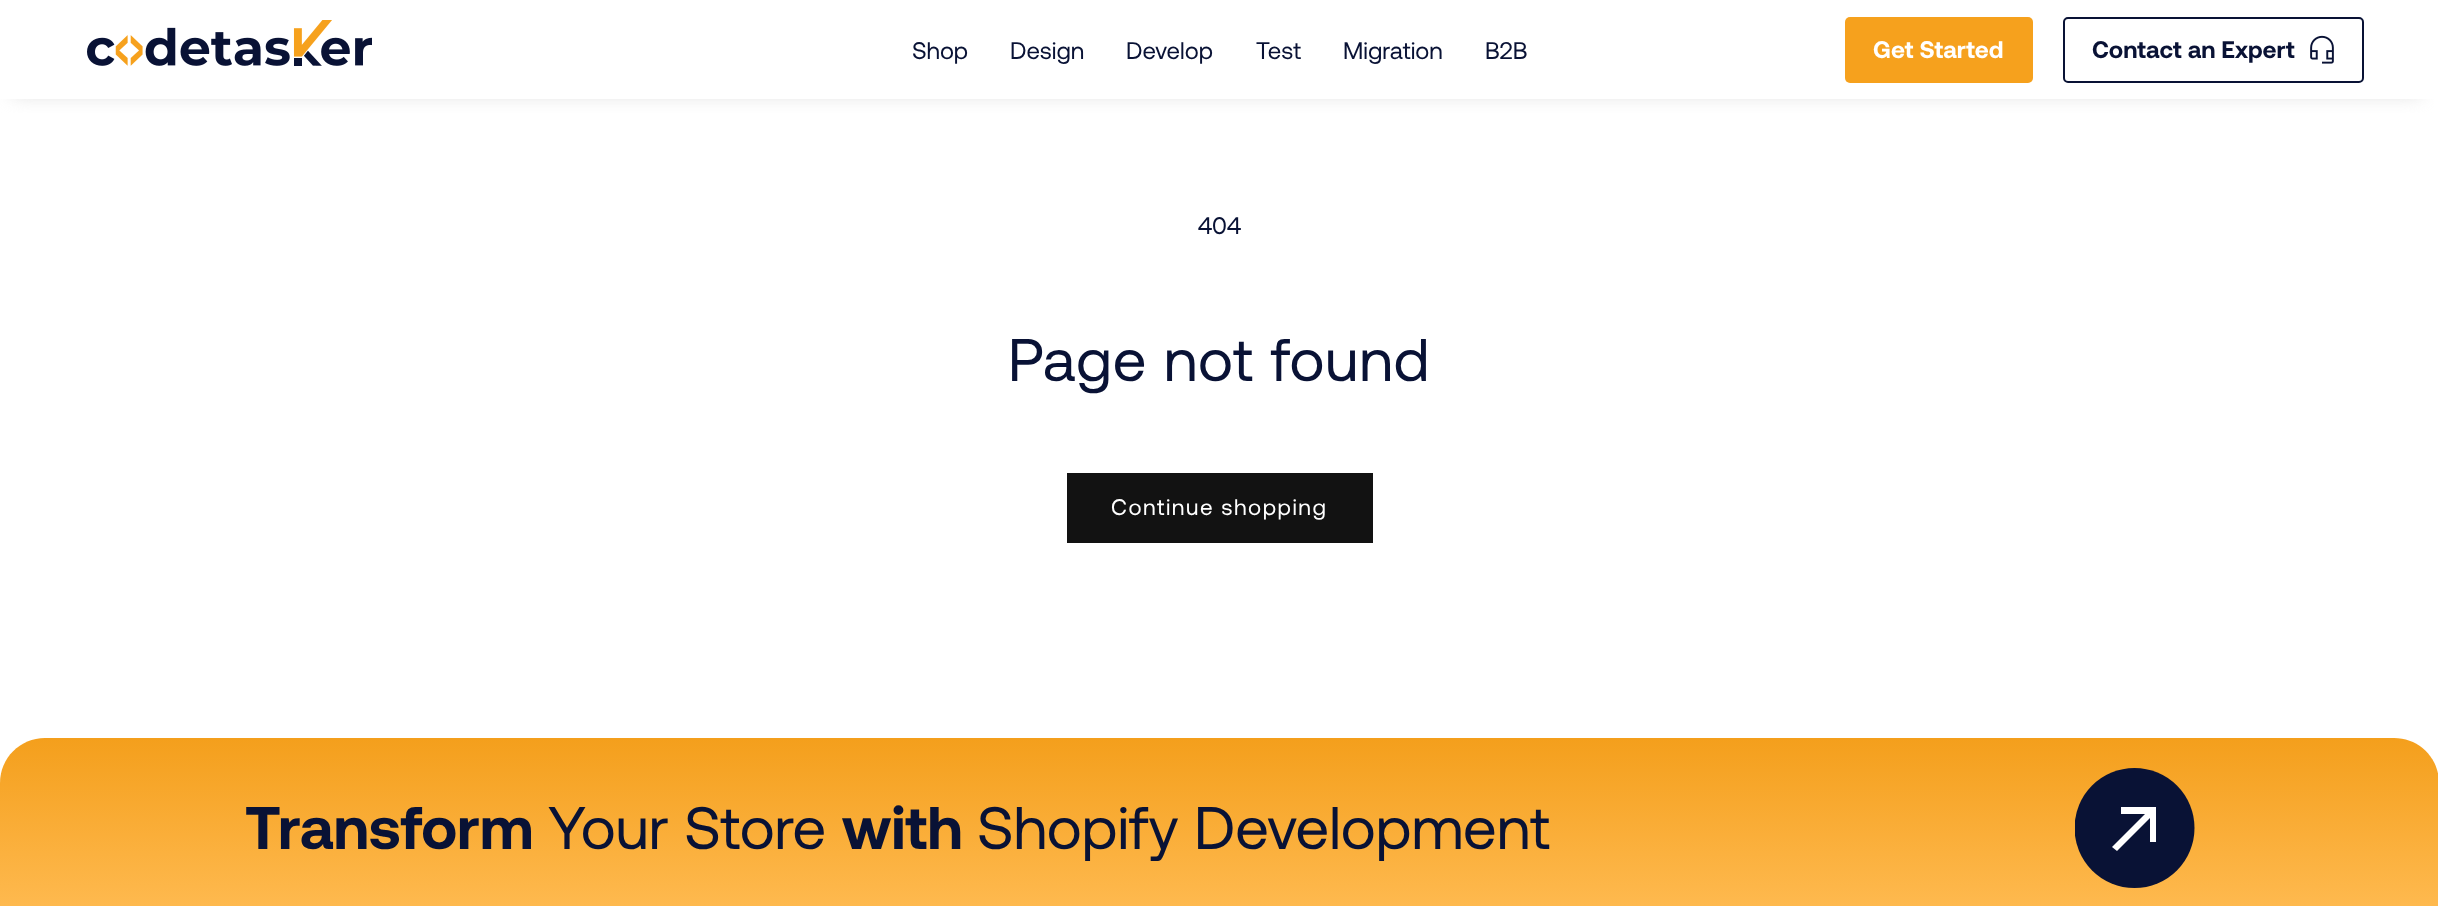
<!DOCTYPE html>
<meta charset="utf-8">
<style>body { margin: 0 } canvas { display: block }</style>
<canvas id="canvas" width="2438" height="906"></canvas>
<img id="img1" src="images/1.png" hidden>
<img id="img2" src="images/2.png" hidden>
<script>
window.onload = function () {
    const canvas = document.getElementById('canvas');
    const context = canvas.getContext('2d');
    context.miterLimit = 4;
    context.fontKerning = 'normal';
    let gradient;

    context.fillStyle = 'rgb(255, 255, 255)';
    context.fillRect(0, 0, 2438, 906);
    context.save();
    context.beginPath();
    context.rect(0, 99, 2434, 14);
    context.clip();
    context.fillStyle = 'rgba(212, 212, 212, 0.75)';
    context.filter = 'blur(9px)';
    context.beginPath();
    context.rect(12, 27, 2409, 69);
    context.fill();
    context.filter = 'none';
    context.restore();
    context.drawImage(document.getElementById('img1'), 87, 20, 285, 46);
    context.fillStyle = 'rgb(246, 161, 29)';
    context.beginPath();
    context.roundRect(1845, 17, 188, 66, 5);
    context.fill();
    context.beginPath();
    context.roundRect(2064, 18, 299, 64, 4);
    context.strokeStyle = 'rgb(9, 18, 53)';
    context.lineWidth = 2;
    context.stroke();
    context.drawImage(document.getElementById('img2'), 2310, 35, 24, 29);
    context.fillStyle = 'rgb(18, 18, 18)';
    context.fillRect(1067, 473, 306, 70);
    gradient = context.createLinearGradient(1220, 738, 1220, 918);
    gradient.addColorStop(0, 'rgb(244, 159, 28)');
    gradient.addColorStop(1, 'rgb(255, 187, 82)');
    context.fillStyle = gradient;
    context.beginPath();
    context.moveTo(45, 738);
    context.lineTo(2394, 738);
    context.bezierCurveTo(2419, 738, 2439, 758, 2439, 783);
    context.lineTo(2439, 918);
    context.lineTo(0, 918);
    context.lineTo(0, 783);
    context.bezierCurveTo(0, 758, 20, 738, 45, 738);
    context.closePath();
    context.fill();
    context.save();
    context.beginPath();
    context.rect(2075, 768, 120, 120);
    context.clip();
    context.fillStyle = 'rgb(9, 18, 53)';
    context.beginPath();
    context.arc(2134.5, 828, 60, 0, 2 * Math.PI);
    context.fill();
    context.restore();
    context.fillStyle = 'rgb(255, 255, 255)';
    context.beginPath();
    context.moveTo(2117, 851);
    context.lineTo(2150, 818);
    context.lineTo(2150, 842);
    context.lineTo(2156, 842);
    context.lineTo(2156, 807);
    context.lineTo(2121, 807);
    context.lineTo(2121, 814);
    context.lineTo(2145, 814);
    context.lineTo(2112, 847);
    context.closePath();
    context.fill();
    context.font = '24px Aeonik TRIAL';
    context.fillStyle = 'rgb(9, 18, 53)';
    context.fillText('Shop', 912, 59);
    context.fillText('Design', 1010, 59);
    context.fillText('Develop', 1126, 59);
    context.fillText('Test', 1256, 59);
    context.fillText('Migration', 1343, 59);
    context.fillText('B2B', 1485, 59);
    context.font = 'bold 24px Aeonik TRIAL';
    context.fillStyle = 'rgb(255, 255, 255)';
    context.fillText('Get Started', 1873, 58);
    context.fillStyle = 'rgb(9, 18, 53)';
    context.fillText('Contact an Expert', 2092, 58);
    context.font = '24px Aeonik TRIAL';
    context.fillText('404', 1198, 234);
    context.letterSpacing = '0.9px';
    context.font = '60px Aeonik TRIAL';
    context.fillText('Page not found', 1008, 381);
    context.letterSpacing = '1.5px';
    context.font = '22.5px Aeonik TRIAL';
    context.fillStyle = 'rgb(255, 255, 255)';
    context.fillText('Continue shopping', 1111, 515);
    context.letterSpacing = '0px';
    context.font = 'bold 60px Aeonik TRIAL';
    context.fillStyle = 'rgb(9, 18, 53)';
    context.fillText('Transform', 245, 849);
    context.font = '60px Aeonik TRIAL';
    context.fillText('Your Store', 548, 849);
    context.font = 'bold 60px Aeonik TRIAL';
    context.fillText('with', 842, 849);
    context.font = '60px Aeonik TRIAL';
    context.fillText('Shopify Development', 977, 849);
};
</script>
